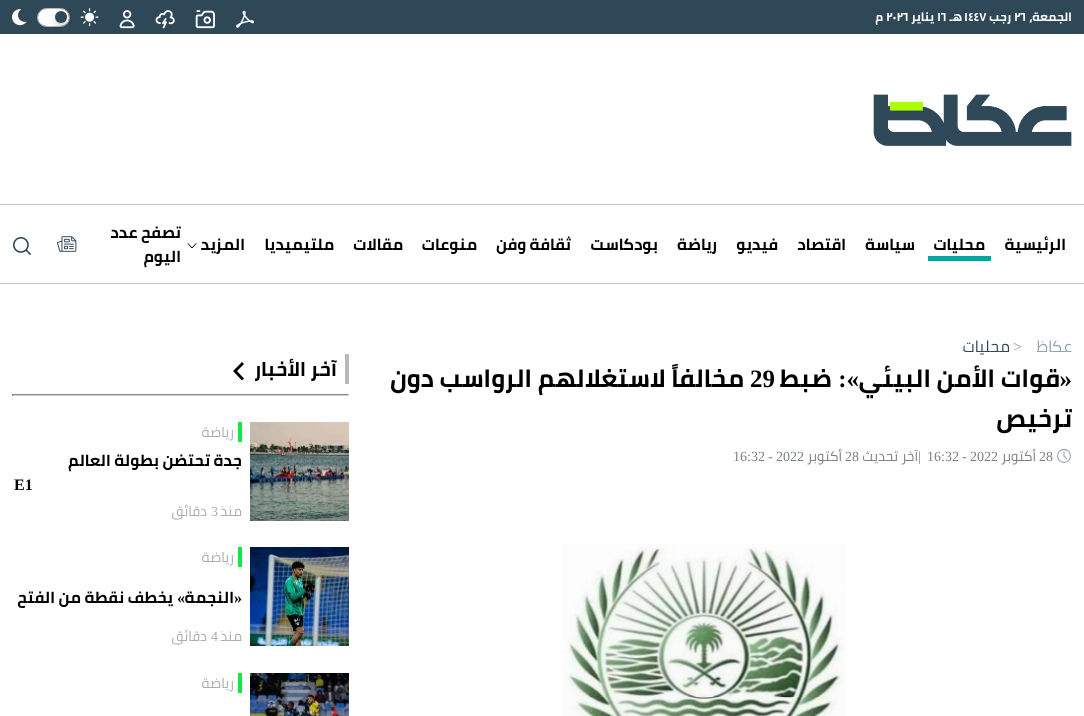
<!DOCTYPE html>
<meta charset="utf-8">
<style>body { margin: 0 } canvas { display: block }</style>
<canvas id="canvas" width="1084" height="716"></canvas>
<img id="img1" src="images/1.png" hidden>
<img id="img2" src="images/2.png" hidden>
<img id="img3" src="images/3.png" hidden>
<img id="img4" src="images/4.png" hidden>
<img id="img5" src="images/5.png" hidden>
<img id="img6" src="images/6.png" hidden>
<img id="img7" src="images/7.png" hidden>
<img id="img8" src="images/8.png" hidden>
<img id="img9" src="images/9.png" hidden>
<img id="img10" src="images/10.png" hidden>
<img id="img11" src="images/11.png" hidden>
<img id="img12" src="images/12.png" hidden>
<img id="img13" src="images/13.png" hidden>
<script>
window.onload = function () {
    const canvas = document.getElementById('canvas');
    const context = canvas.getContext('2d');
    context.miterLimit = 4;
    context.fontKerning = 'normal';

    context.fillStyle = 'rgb(255, 255, 255)';
    context.fillRect(0, 0, 1084, 716);
    context.fillStyle = 'rgb(47, 72, 88)';
    context.fillRect(0, 0, 1084, 34);
    context.drawImage(document.getElementById('img1'), 236, 10, 18, 18);
    context.drawImage(document.getElementById('img2'), 195, 10, 20, 19);
    context.drawImage(document.getElementById('img3'), 155, 10, 20, 19);
    context.drawImage(document.getElementById('img4'), 119, 10, 16, 19);
    context.drawImage(document.getElementById('img5'), 80, 8, 19, 19);
    context.beginPath();
    context.roundRect(37.5, 8.5, 32, 18, 9);
    context.strokeStyle = 'rgb(184, 184, 184)';
    context.stroke();
    context.fillStyle = 'rgb(255, 255, 255)';
    context.beginPath();
    context.roundRect(38, 9, 31, 17, 8.5);
    context.fill();
    context.fillStyle = 'rgba(0, 0, 0, 0.1)';
    context.filter = 'blur(3px)';
    context.beginPath();
    context.roundRect(55, 15, 12, 12, 6);
    context.fill();
    context.filter = 'none';
    context.fillStyle = 'rgba(0, 0, 0, 0.08)';
    context.filter = 'blur(2px)';
    context.beginPath();
    context.roundRect(55, 13, 12, 12, 6);
    context.fill();
    context.filter = 'none';
    context.fillStyle = 'rgba(0, 0, 0, 0.05)';
    context.filter = 'blur(0.5px)';
    context.beginPath();
    context.roundRect(55, 12, 12, 12, 6);
    context.fill();
    context.filter = 'none';
    context.fillStyle = 'rgb(47, 72, 88)';
    context.beginPath();
    context.arc(61, 17, 6, 0, 2 * Math.PI);
    context.fill();
    context.drawImage(document.getElementById('img6'), 12, 9, 15, 17);
    context.fillStyle = 'rgb(198, 198, 198)';
    context.fillRect(0, 204, 1084, 1);
    context.drawImage(document.getElementById('img7'), 873, 94, 199, 52);
    context.fillRect(0, 283, 1084, 1);
    context.fillStyle = 'rgb(0, 166, 162)';
    context.fillRect(928, 256, 63, 5);
    context.beginPath();
    context.moveTo(188, 243.5);
    context.lineTo(192, 248);
    context.lineTo(196, 243.5);
    context.strokeStyle = 'rgb(0, 0, 0)';
    context.lineCap = 'round';
    context.stroke();
    context.drawImage(document.getElementById('img8'), 57, 236, 20, 16);
    context.drawImage(document.getElementById('img9'), 13, 237, 18, 18);
    context.beginPath();
    context.arc(1064, 456, 6.5, 0, 2 * Math.PI);
    context.strokeStyle = 'rgb(170, 175, 180)';
    context.lineWidth = 1.3;
    context.stroke();
    context.beginPath();
    context.moveTo(1064, 452);
    context.lineTo(1064, 456);
    context.lineTo(1066.5, 458.5);
    context.lineJoin = 'round';
    context.stroke();
    context.drawImage(document.getElementById('img10'), 562, 544, 284, 172);
    context.fillStyle = 'rgb(186, 186, 186)';
    context.fillRect(345, 354, 4, 30);
    context.fillStyle = 'rgb(0, 0, 0)';
    context.beginPath();
    context.moveTo(233, 371);
    context.lineTo(242, 362);
    context.lineTo(244, 364);
    context.lineTo(237, 371);
    context.lineTo(244, 378.5);
    context.lineTo(242, 380.5);
    context.closePath();
    context.fill();
    context.fillStyle = 'rgb(139, 139, 139)';
    context.fillRect(12, 394, 337, 1);
    context.fillStyle = 'rgb(208, 208, 208)';
    context.fillRect(348, 394, 1, 2);
    context.fillRect(12, 395, 337, 1);
    context.fillStyle = 'rgb(139, 139, 139)';
    context.fillRect(12, 394, 1, 2);
    context.drawImage(document.getElementById('img11'), 250, 422, 99, 99);
    context.fillStyle = 'rgb(17, 233, 68)';
    context.fillRect(238, 422, 4, 20);
    context.drawImage(document.getElementById('img12'), 250, 547, 99, 99);
    context.fillRect(238, 547, 4, 20);
    context.drawImage(document.getElementById('img13'), 250, 673, 99, 43);
    context.fillRect(238, 673, 4, 20);
    context.direction = 'rtl';
    context.font = 'bold 12px Cairo';
    context.fillStyle = 'rgb(255, 255, 255)';
    context.fillText('الجمعة،', 1072, 21);
    context.direction = 'ltr';
    context.fillText('٢٦', 1014, 21);
    context.direction = 'rtl';
    context.fillText('رجب', 1011, 21);
    context.direction = 'ltr';
    context.fillText('١٤٤٧', 964, 21);
    context.direction = 'rtl';
    context.fillText('هـ', 962, 21);
    context.direction = 'ltr';
    context.fillText('١٦', 937, 21);
    context.direction = 'rtl';
    context.fillText('يناير', 934, 21);
    context.direction = 'ltr';
    context.fillText('٢٠٢٦', 886, 21);
    context.direction = 'rtl';
    context.fillText('م', 883, 21);
    context.font = 'bold 16px Cairo';
    context.fillStyle = 'rgb(0, 0, 0)';
    context.fillText('الرئيسية', 1066, 250);
    context.fillText('محليات', 985, 250);
    context.fillText('سياسة', 915, 250);
    context.fillText('اقتصاد', 846, 250);
    context.fillText('فيديو', 778, 250);
    context.fillText('رياضة', 717, 250);
    context.fillText('بودكاست', 658, 250);
    context.fillText('ثقافة وفن', 571, 250);
    context.fillText('منوعات', 477, 250);
    context.fillText('مقالات', 403, 250);
    context.fillText('ملتيميديا', 334, 250);
    context.fillText('المزيد', 245, 250);
    context.fillText('تصفح عدد', 181, 238);
    context.fillText('اليوم', 181, 262);
    context.font = '16px Cairo';
    context.fillStyle = 'rgb(151, 164, 172)';
    context.fillText('عكاظ', 1072, 352);
    context.direction = 'ltr';
    context.font = '16px Liberation Serif';
    context.fillText('>', 1013, 352);
    context.direction = 'rtl';
    context.font = '16px Cairo';
    context.fillStyle = 'rgb(47, 72, 88)';
    context.fillText('محليات', 1010, 352);
    context.font = 'bold 25px Liberation Serif';
    context.fillStyle = 'rgb(0, 0, 0)';
    context.fillText('«', 1072, 387);
    context.font = 'bold 25px Cairo';
    context.fillText('قوات الأمن البيئي', 1060, 387);
    context.font = 'bold 25px Liberation Serif';
    context.fillText('»:', 859, 387);
    context.font = 'bold 25px Cairo';
    context.fillText('ضبط', 832, 387);
    context.direction = 'ltr';
    context.font = 'bold 25px Liberation Serif';
    context.fillText('29', 750, 387);
    context.direction = 'rtl';
    context.font = 'bold 25px Cairo';
    context.fillText('مخالفاً لاستغلالهم الرواسب دون', 744, 387);
    context.fillText('ترخيص', 1072, 427);
    context.direction = 'ltr';
    context.font = '14px Liberation Serif';
    context.fillStyle = 'rgb(126, 130, 133)';
    context.fillText('28', 1039, 461);
    context.direction = 'rtl';
    context.font = '14px Cairo';
    context.fillText('أكتوبر', 1036, 461);
    context.direction = 'ltr';
    context.font = '14px Liberation Serif';
    context.fillText('2022', 970, 461);
    context.fillText('-', 962, 461);
    context.fillText('16:32', 927, 461);
    context.fillText('|', 918, 461);
    context.direction = 'rtl';
    context.font = '14px Cairo';
    context.fillText('آخر تحديث', 918, 461);
    context.direction = 'ltr';
    context.font = '14px Liberation Serif';
    context.fillText('28', 845, 461);
    context.direction = 'rtl';
    context.font = '14px Cairo';
    context.fillText('أكتوبر', 842, 461);
    context.direction = 'ltr';
    context.font = '14px Liberation Serif';
    context.fillText('2022', 776, 461);
    context.fillText('-', 768, 461);
    context.fillText('16:32', 733, 461);
    context.direction = 'rtl';
    context.font = 'bold 20px Cairo';
    context.fillStyle = 'rgb(0, 0, 0)';
    context.fillText('آخر الأخبار', 337, 376);
    context.font = '14px Cairo';
    context.fillStyle = 'rgb(170, 175, 180)';
    context.fillText('رياضة', 234, 437);
    context.font = 'bold 16px Cairo';
    context.fillStyle = 'rgb(0, 0, 0)';
    context.fillText('جدة تحتضن بطولة العالم', 242, 466);
    context.direction = 'ltr';
    context.font = 'bold 16px Liberation Serif';
    context.fillText('E1', 14, 490);
    context.direction = 'rtl';
    context.font = '14px Cairo';
    context.fillStyle = 'rgb(170, 175, 180)';
    context.fillText('منذ', 242, 516);
    context.direction = 'ltr';
    context.font = '14px Liberation Serif';
    context.fillText('3', 211, 516);
    context.direction = 'rtl';
    context.font = '14px Cairo';
    context.fillText('دقائق', 207, 516);
    context.fillText('رياضة', 234, 562);
    context.font = 'bold 16px Liberation Serif';
    context.fillStyle = 'rgb(0, 0, 0)';
    context.fillText('«', 242, 603);
    context.font = 'bold 16px Cairo';
    context.fillText('النجمة', 234, 603);
    context.font = 'bold 16px Liberation Serif';
    context.fillText('»', 185, 603);
    context.font = 'bold 16px Cairo';
    context.fillText('يخطف نقطة من الفتح', 173, 603);
    context.font = '14px Cairo';
    context.fillStyle = 'rgb(170, 175, 180)';
    context.fillText('منذ', 242, 641);
    context.direction = 'ltr';
    context.font = '14px Liberation Serif';
    context.fillText('4', 211, 641);
    context.direction = 'rtl';
    context.font = '14px Cairo';
    context.fillText('دقائق', 207, 641);
    context.fillText('رياضة', 234, 688);
};
</script>
